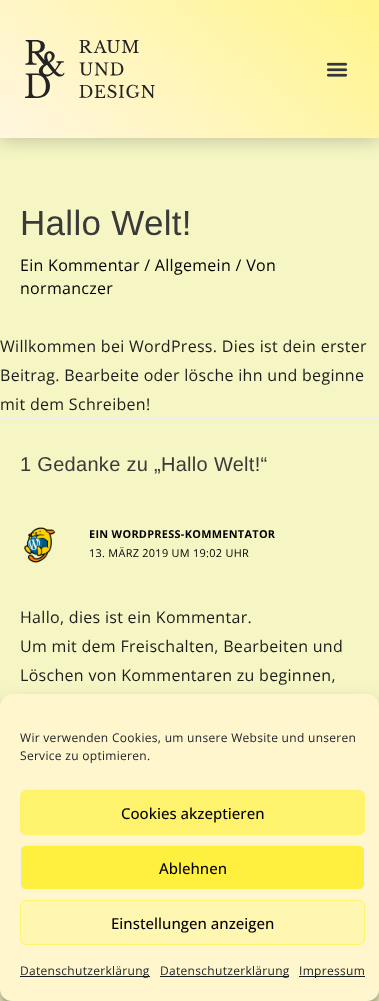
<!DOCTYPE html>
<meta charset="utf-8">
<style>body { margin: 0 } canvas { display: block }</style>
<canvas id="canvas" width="379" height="1001"></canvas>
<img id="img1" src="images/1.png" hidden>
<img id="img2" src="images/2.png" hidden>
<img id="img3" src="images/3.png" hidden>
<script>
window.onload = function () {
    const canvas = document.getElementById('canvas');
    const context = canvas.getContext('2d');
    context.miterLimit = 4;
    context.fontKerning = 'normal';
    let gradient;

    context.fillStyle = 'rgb(245, 246, 196)';
    context.fillRect(0, 0, 379, 1001);
    context.fillStyle = 'rgba(0, 0, 0, 0.26)';
    context.filter = 'blur(10px)';
    context.beginPath();
    context.rect(0, 0, 379, 138);
    context.fill();
    context.filter = 'none';
    gradient = context.createLinearGradient(302, -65, 77, 203);
    gradient.addColorStop(0, 'rgb(255, 245, 139)');
    gradient.addColorStop(1, 'rgb(255, 246, 225)');
    context.fillStyle = gradient;
    context.fillRect(0, 0, 379, 138);
    context.drawImage(document.getElementById('img1'), 25, 40, 130, 58);
    context.drawImage(document.getElementById('img2'), 326, 62, 22, 15);
    context.fillStyle = 'rgb(238, 238, 238)';
    context.fillRect(0, 418, 379, 1);
    context.drawImage(document.getElementById('img3'), 24, 527, 32, 36);
    context.fillStyle = 'rgba(0, 0, 0, 0.23)';
    context.filter = 'blur(3px)';
    context.beginPath();
    context.roundRect(0, 700, 379, 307, 12);
    context.fill();
    context.filter = 'none';
    context.fillStyle = 'rgba(0, 0, 0, 0.19)';
    context.filter = 'blur(10px)';
    context.beginPath();
    context.roundRect(0, 704, 379, 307, 12);
    context.fill();
    context.filter = 'none';
    context.fillStyle = 'rgb(255, 246, 206)';
    context.beginPath();
    context.roundRect(0, 694, 379, 307, 12);
    context.fill();
    context.fillStyle = 'rgb(255, 242, 108)';
    context.beginPath();
    context.roundRect(20.5, 790.5, 344, 44, 5.5);
    context.fill();
    context.strokeStyle = 'rgb(255, 242, 108)';
    context.stroke();
    context.fillStyle = 'rgb(255, 239, 63)';
    context.beginPath();
    context.roundRect(20.5, 845.5, 344, 44, 5.5);
    context.fill();
    context.strokeStyle = 'rgb(241, 241, 241)';
    context.stroke();
    context.fillStyle = 'rgb(255, 246, 178)';
    context.beginPath();
    context.roundRect(20.5, 900.5, 344, 44, 5.5);
    context.fill();
    context.strokeStyle = 'rgb(255, 242, 108)';
    context.stroke();
    context.fillStyle = 'rgb(25, 30, 35)';
    context.fillRect(20, 976, 130, 1);
    context.fillRect(160, 976, 129, 1);
    context.fillRect(299, 976, 66, 1);
    context.letterSpacing = '0.3px';
    context.font = '35px Liberation Sans';
    context.fillStyle = 'rgb(58, 58, 58)';
    context.fillText('Hallo Welt!', 20, 235);
    context.font = '16px Open Sans';
    context.fillStyle = 'rgb(0, 0, 0)';
    context.fillText('Ein Kommentar / Allgemein / Von', 20, 271);
    context.fillText('normanczer', 20, 294);
    context.fillStyle = 'rgb(28, 28, 28)';
    context.fillText('Willkommen bei WordPress. Dies ist dein erster', 0, 352);
    context.fillText('Beitrag. Bearbeite oder lösche ihn und beginne', 0, 381);
    context.fillText('mit dem Schreiben!', 0, 410);
    context.font = '20px Liberation Sans';
    context.fillStyle = 'rgb(58, 58, 58)';
    context.fillText('1 Gedanke zu „Hallo Welt!“', 20, 471);
    context.font = 'bold 10.9px Open Sans';
    context.fillStyle = 'rgb(0, 0, 0)';
    context.fillText('EIN WORDPRESS-KOMMENTATOR', 89, 538);
    context.font = '10.9px Open Sans';
    context.fillText('13. MÄRZ 2019 UM 19:02 UHR', 89, 557);
    context.font = '16px Open Sans';
    context.fillStyle = 'rgb(28, 28, 28)';
    context.fillText('Hallo, dies ist ein Kommentar.', 20, 623);
    context.fillText('Um mit dem Freischalten, Bearbeiten und', 20, 652);
    context.fillText('Löschen von Kommentaren zu beginnen,', 20, 681);
    context.font = '12px Open Sans';
    context.fillStyle = 'rgb(25, 30, 35)';
    context.fillText('Wir verwenden Cookies, um unsere Website und unseren', 20, 742);
    context.fillText('Service zu optimieren.', 20, 760);
    context.letterSpacing = '0px';
    context.font = '500 15px Open Sans';
    context.fillStyle = 'rgb(0, 0, 0)';
    context.fillText('Cookies akzeptieren', 121, 819);
    context.fillText('Ablehnen', 159, 874);
    context.fillText('Einstellungen anzeigen', 111, 929);
    context.letterSpacing = '0.3px';
    context.font = '12px Open Sans';
    context.fillStyle = 'rgb(25, 30, 35)';
    context.fillText('Datenschutzerklärung', 20, 975);
    context.fillText('Datenschutzerklärung', 160, 975);
    context.fillText('Impressum', 299, 975);
};
</script>
